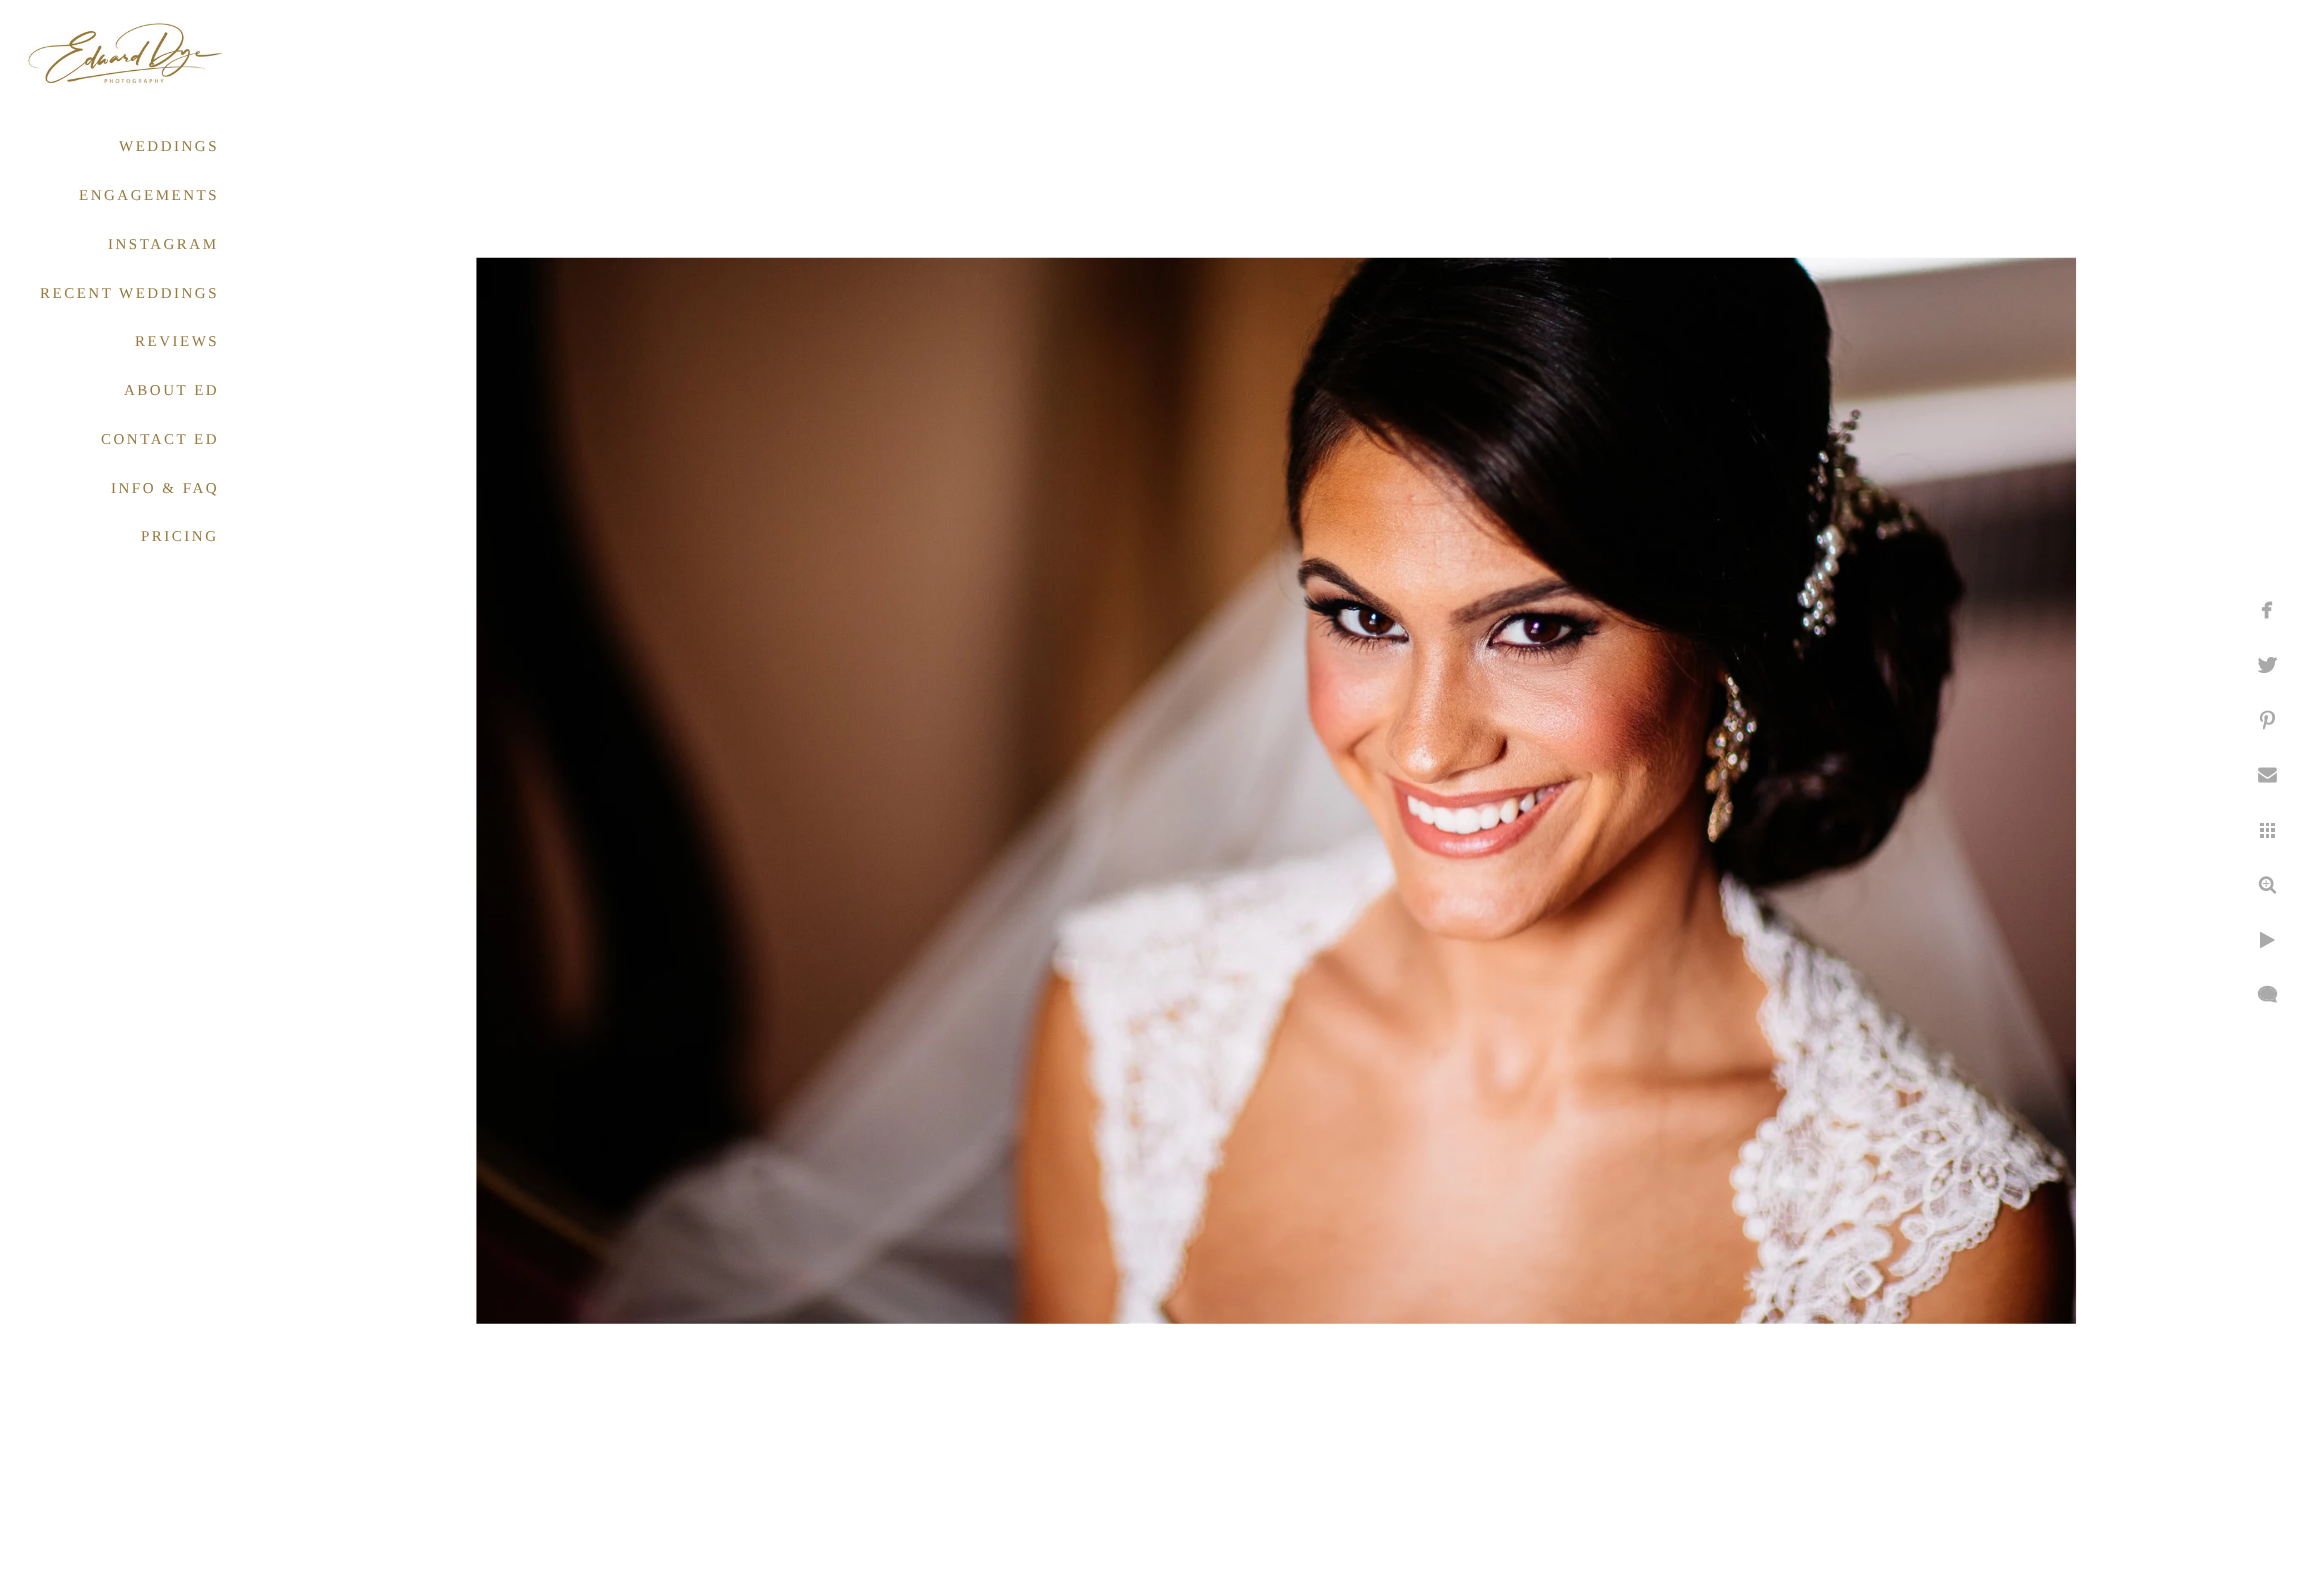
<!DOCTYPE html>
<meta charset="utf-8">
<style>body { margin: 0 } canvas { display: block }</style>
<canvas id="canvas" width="2301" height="1578"></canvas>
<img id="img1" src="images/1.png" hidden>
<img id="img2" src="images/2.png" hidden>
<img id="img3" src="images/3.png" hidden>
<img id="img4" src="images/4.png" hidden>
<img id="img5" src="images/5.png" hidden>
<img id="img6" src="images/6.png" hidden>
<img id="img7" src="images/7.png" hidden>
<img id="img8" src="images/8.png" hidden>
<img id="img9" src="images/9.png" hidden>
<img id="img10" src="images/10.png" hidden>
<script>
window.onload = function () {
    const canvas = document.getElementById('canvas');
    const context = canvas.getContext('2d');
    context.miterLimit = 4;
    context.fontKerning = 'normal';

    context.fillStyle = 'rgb(255, 255, 255)';
    context.fillRect(0, 0, 2301, 1578);
    context.drawImage(document.getElementById('img1'), 28, 22, 195, 64);
    context.drawImage(document.getElementById('img2'), 476, 257, 1601, 1067);
    context.drawImage(document.getElementById('img3'), 2261, 601, 12, 18);
    context.drawImage(document.getElementById('img4'), 2257, 657, 21, 16);
    context.drawImage(document.getElementById('img5'), 2260, 710, 15, 20);
    context.drawImage(document.getElementById('img6'), 2258, 767, 19, 16);
    context.drawImage(document.getElementById('img7'), 2260, 823, 15, 15);
    context.drawImage(document.getElementById('img8'), 2258, 876, 19, 18);
    context.drawImage(document.getElementById('img9'), 2260, 932, 15, 16);
    context.drawImage(document.getElementById('img10'), 2257, 985, 21, 18);
    context.letterSpacing = '2.5px';
    context.font = '15px Liberation Serif';
    context.fillStyle = 'rgb(151, 121, 62)';
    context.fillText('WEDDINGS', 119, 151);
    context.fillText('ENGAGEMENTS', 79, 200);
    context.fillText('INSTAGRAM', 108, 249);
    context.fillText('RECENT WEDDINGS', 40, 298);
    context.fillText('REVIEWS', 135, 346);
    context.fillText('ABOUT ED', 124, 395);
    context.fillText('CONTACT ED', 101, 444);
    context.fillText('INFO & FAQ', 111, 493);
    context.fillText('PRICING', 141, 541);
};
</script>
